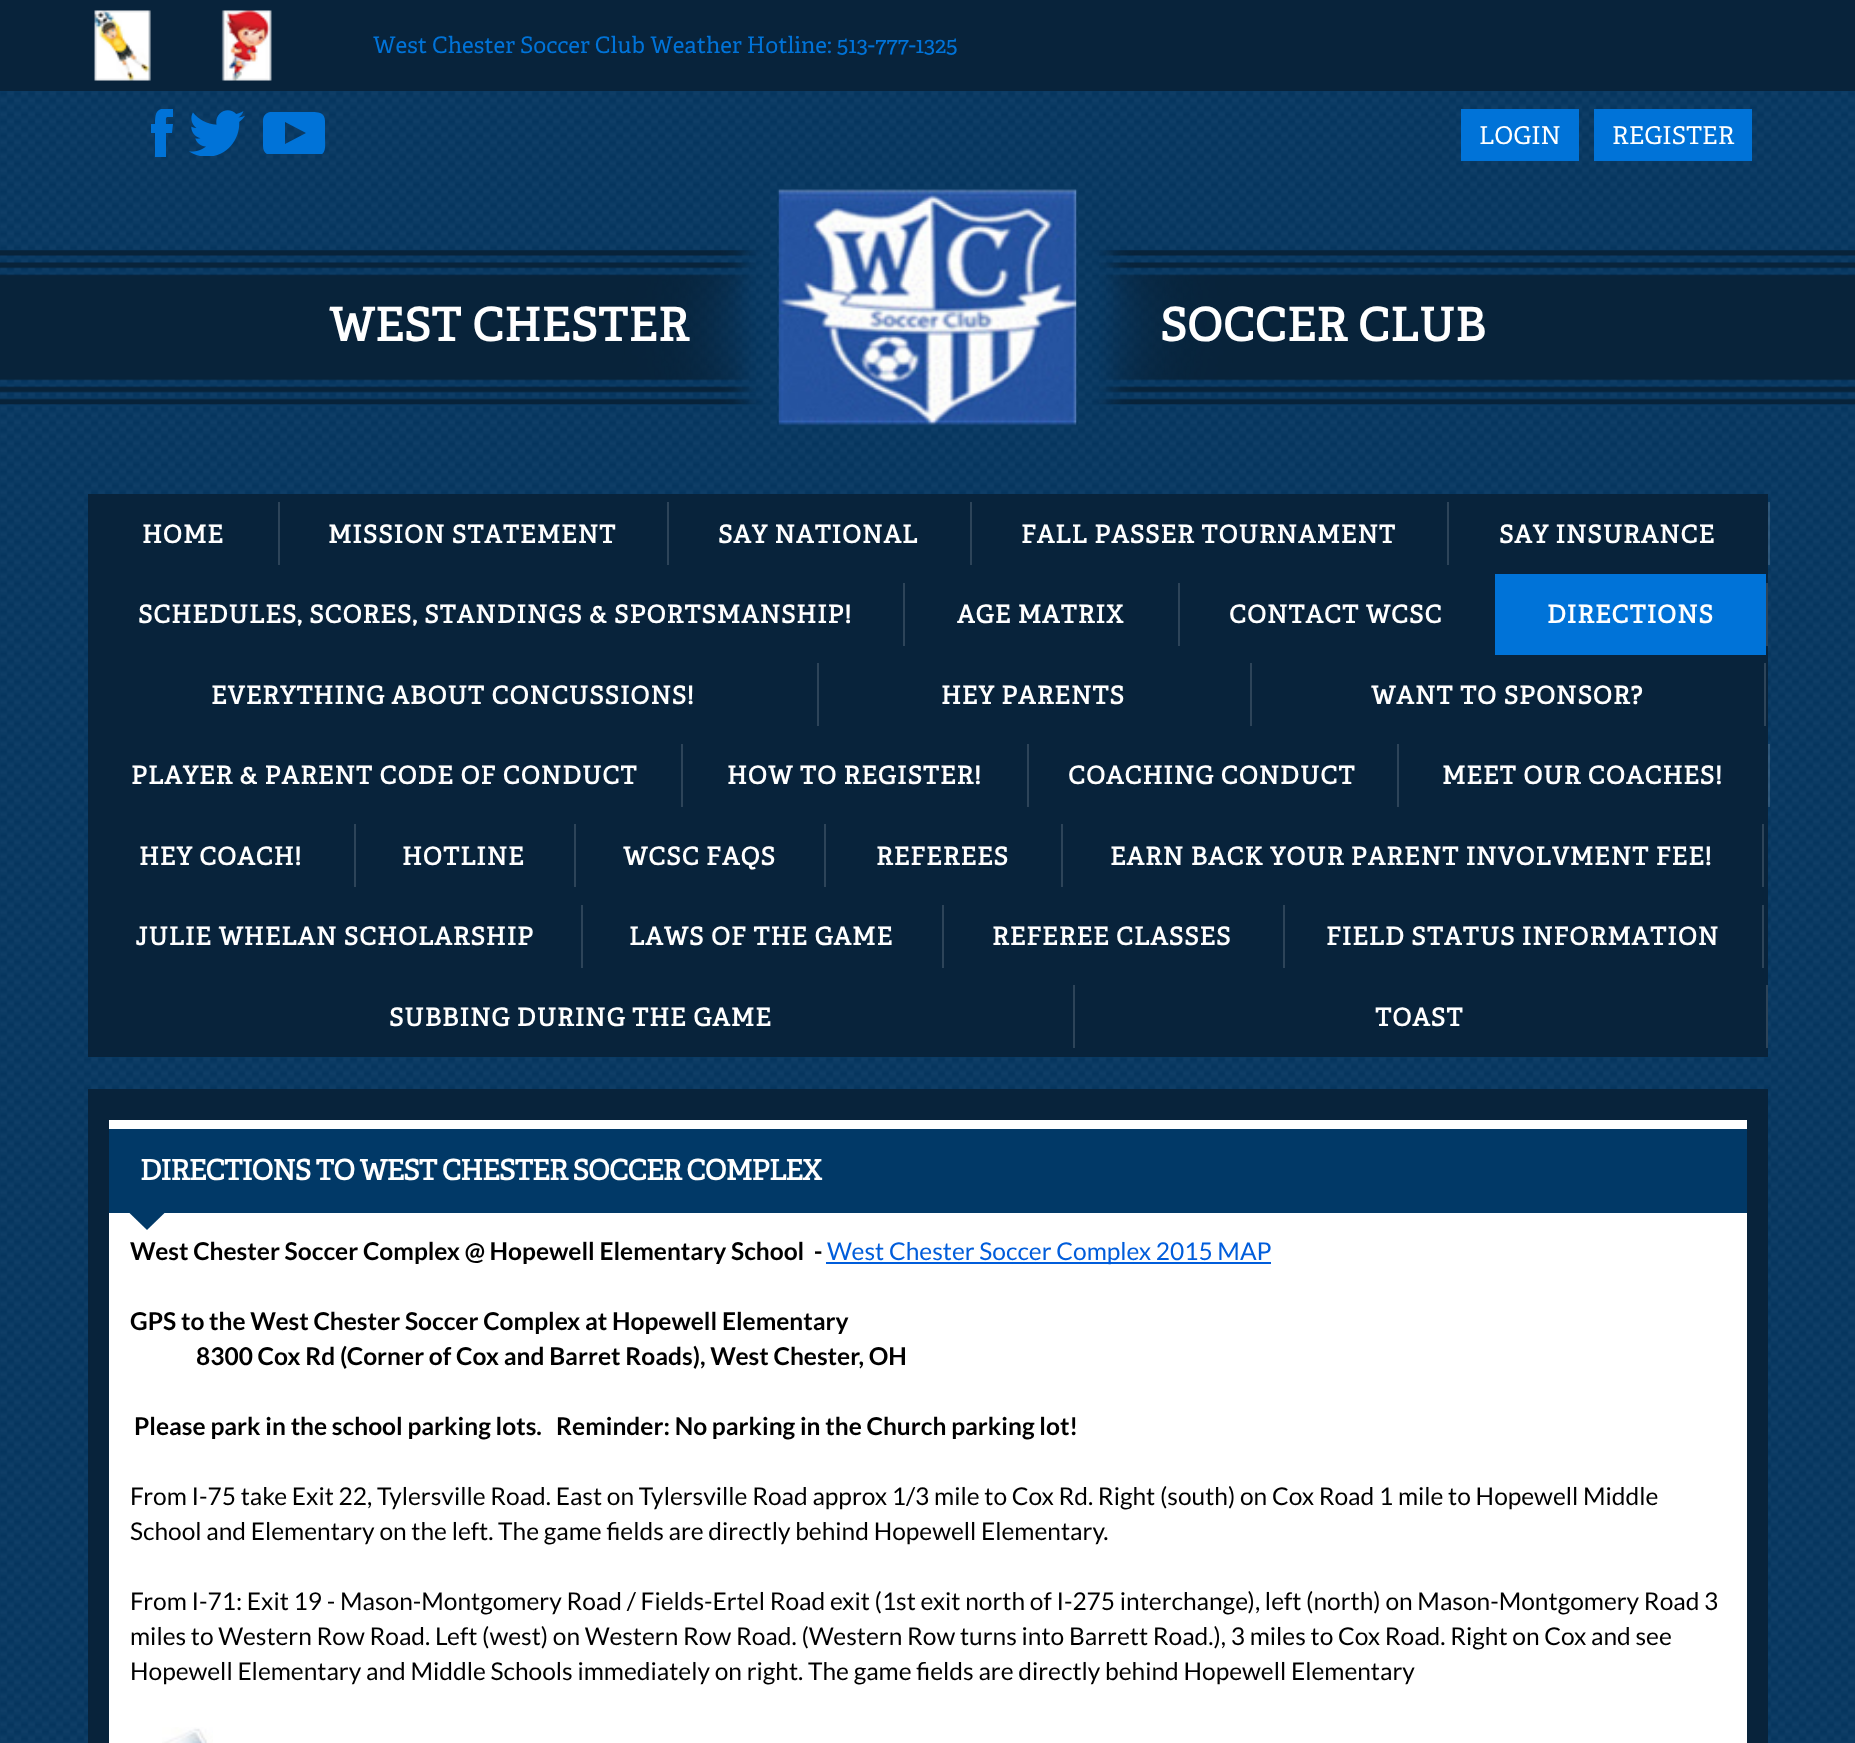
<!DOCTYPE html>
<meta charset="utf-8">
<style>body { margin: 0 } canvas { display: block }</style>
<canvas id="canvas" width="1855" height="1743"></canvas>
<img id="img1" src="images/1.png" hidden>
<img id="img2" src="images/2.png" hidden>
<img id="img3" src="images/3.png" hidden>
<img id="img4" src="images/4.png" hidden>
<img id="img5" src="images/5.png" hidden>
<img id="img6" src="images/6.png" hidden>
<img id="img7" src="images/7.png" hidden>
<script>
window.onload = function () {
    const canvas = document.getElementById('canvas');
    const context = canvas.getContext('2d');
    context.miterLimit = 4;
    context.fontKerning = 'normal';

    context.fillStyle = 'rgb(255, 255, 255)';
    context.fillRect(0, 0, 1855, 1743);
    context.drawImage(document.getElementById('img1'), 0, 91, 1855, 1652);
    context.fillStyle = 'rgb(8, 35, 59)';
    context.fillRect(0, 0, 1855, 91);
    context.drawImage(document.getElementById('img2'), 94, 10, 57, 71);
    context.drawImage(document.getElementById('img3'), 221, 10, 51, 71);
    context.save();
    context.beginPath();
    context.rect(151, 109, 22, 49);
    context.clip();
    context.fillStyle = 'rgb(0, 115, 216)';
    context.beginPath();
    context.moveTo(172, 133);
    context.lineTo(166, 133);
    context.lineTo(166, 157);
    context.lineTo(155, 157);
    context.lineTo(155, 133);
    context.lineTo(151, 133);
    context.lineTo(151, 124);
    context.lineTo(155, 124);
    context.bezierCurveTo(155, 109, 158, 108, 173, 108);
    context.lineTo(173, 117);
    context.bezierCurveTo(165, 117, 166, 116, 166, 124);
    context.lineTo(173, 124);
    context.closePath();
    context.fill();
    context.restore();
    context.drawImage(document.getElementById('img4'), 189, 110, 56, 46);
    context.save();
    context.beginPath();
    context.rect(263, 112, 63, 42);
    context.clip();
    context.fillStyle = 'rgb(0, 115, 216)';
    context.beginPath();
    context.moveTo(325, 121);
    context.bezierCurveTo(325, 111, 316, 112, 309, 112);
    context.lineTo(270, 112);
    context.bezierCurveTo(261, 114, 263, 123, 263, 130);
    context.lineTo(263, 146);
    context.bezierCurveTo(263, 156, 272, 156, 279, 156);
    context.lineTo(318, 156);
    context.bezierCurveTo(327, 154, 325, 145, 325, 138);
    context.closePath();
    context.moveTo(285, 144);
    context.lineTo(285, 122);
    context.lineTo(306, 133);
    context.closePath();
    context.fill();
    context.restore();
    context.fillStyle = 'rgb(0, 115, 216)';
    context.fillRect(1461, 109, 118, 52);
    context.fillRect(1594, 109, 158, 52);
    context.drawImage(document.getElementById('img5'), 0, 250, 1855, 155);
    context.drawImage(document.getElementById('img6'), 778, 189, 299, 237);
    context.fillStyle = 'rgb(8, 35, 59)';
    context.fillRect(88, 494, 1680, 563);
    context.fillStyle = 'rgb(45, 68, 89)';
    context.fillRect(278, 502, 2, 63);
    context.fillRect(667, 502, 2, 63);
    context.fillRect(970, 502, 2, 63);
    context.fillRect(1447, 502, 2, 63);
    context.fillStyle = 'rgba(255, 255, 255, 0.15)';
    context.fillRect(1768, 502, 2, 63);
    context.fillStyle = 'rgb(45, 68, 89)';
    context.fillRect(903, 583, 2, 63);
    context.fillRect(1178, 583, 2, 63);
    context.fillStyle = 'rgb(0, 115, 216)';
    context.fillRect(1495, 574, 271, 81);
    context.fillStyle = 'rgb(45, 68, 89)';
    context.fillRect(1766, 583, 2, 63);
    context.fillRect(817, 663, 2, 63);
    context.fillRect(1250, 663, 2, 63);
    context.fillRect(1764, 663, 2, 63);
    context.fillRect(681, 744, 2, 63);
    context.fillRect(1027, 744, 2, 63);
    context.fillRect(1397, 744, 2, 63);
    context.fillStyle = 'rgba(255, 255, 255, 0.15)';
    context.fillRect(1768, 744, 2, 63);
    context.fillStyle = 'rgb(45, 68, 89)';
    context.fillRect(354, 824, 2, 63);
    context.fillRect(574, 824, 2, 63);
    context.fillRect(824, 824, 2, 63);
    context.fillRect(1061, 824, 2, 63);
    context.fillRect(1762, 824, 2, 63);
    context.fillRect(581, 905, 2, 63);
    context.fillRect(942, 905, 2, 63);
    context.fillRect(1283, 905, 2, 63);
    context.fillRect(1762, 905, 2, 63);
    context.fillRect(1073, 985, 2, 63);
    context.fillRect(1766, 985, 2, 63);
    context.fillStyle = 'rgb(8, 35, 59)';
    context.fillRect(88, 1089, 1680, 654);
    context.fillStyle = 'rgb(1, 57, 103)';
    context.fillRect(109, 1129, 1638, 84);
    context.fillStyle = 'rgb(255, 255, 255)';
    context.fillRect(109, 1120, 1638, 9);
    context.fillRect(109, 1213, 1638, 530);
    context.fillStyle = 'rgb(1, 57, 103)';
    context.beginPath();
    context.moveTo(129.5, 1213);
    context.lineTo(164.5, 1213);
    context.lineTo(147, 1230);
    context.closePath();
    context.fill();
    context.fillStyle = 'rgb(0, 93, 219)';
    context.fillRect(826, 1262, 445, 2);
    context.drawImage(document.getElementById('img7'), 162, 1727, 51, 16);
    context.font = '22.75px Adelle';
    context.fillStyle = 'rgb(0, 115, 216)';
    context.fillText('West Chester Soccer Club Weather Hotline: 513-777-1325', 373, 53);
    context.font = '24.5px Adelle';
    context.fillStyle = 'rgb(255, 255, 255)';
    context.fillText('LOGIN', 1479, 144);
    context.fillText('REGISTER', 1612, 144);
    context.letterSpacing = '0.5px';
    context.font = 'bold 45.5px Adelle';
    context.fillText('WEST CHESTER', 329, 341);
    context.fillText('SOCCER CLUB', 1160, 341);
    context.letterSpacing = '1.05px';
    context.font = 'bold 24.5px Adelle';
    context.fillText('HOME', 142, 543);
    context.fillText('MISSION STATEMENT', 328, 543);
    context.fillText('SAY NATIONAL', 718, 543);
    context.fillText('FALL PASSER TOURNAMENT', 1021, 543);
    context.fillText('SAY INSURANCE', 1499, 543);
    context.fillText('SCHEDULES, SCORES, STANDINGS & SPORTSMANSHIP!', 138, 623);
    context.fillText('AGE MATRIX', 957, 623);
    context.fillText('CONTACT WCSC', 1229, 623);
    context.fillText('DIRECTIONS', 1547, 623);
    context.fillText('EVERYTHING ABOUT CONCUSSIONS!', 211, 704);
    context.fillText('HEY PARENTS', 941, 704);
    context.fillText('WANT TO SPONSOR?', 1371, 704);
    context.fillText('PLAYER & PARENT CODE OF CONDUCT', 131, 784);
    context.fillText('HOW TO REGISTER!', 727, 784);
    context.fillText('COACHING CONDUCT', 1068, 784);
    context.fillText('MEET OUR COACHES!', 1442, 784);
    context.fillText('HEY COACH!', 139, 865);
    context.fillText('HOTLINE', 402, 865);
    context.fillText('WCSC FAQS', 623, 865);
    context.fillText('REFEREES', 876, 865);
    context.fillText('EARN BACK YOUR PARENT INVOLVMENT FEE!', 1110, 865);
    context.fillText('JULIE WHELAN SCHOLARSHIP', 135, 945);
    context.fillText('LAWS OF THE GAME', 629, 945);
    context.fillText('REFEREE CLASSES', 992, 945);
    context.fillText('FIELD STATUS INFORMATION', 1326, 945);
    context.fillText('SUBBING DURING THE GAME', 389, 1026);
    context.fillText('TOAST', 1375, 1026);
    context.letterSpacing = '-0.85px';
    context.font = 'bold 28px Adelle';
    context.fillText('DIRECTIONS TO WEST CHESTER SOCCER COMPLEX', 140, 1180);
    context.letterSpacing = '0px';
    context.font = 'bold 24.5px Lato';
    context.fillStyle = 'rgb(0, 0, 0)';
    context.fillText('West Chester Soccer Complex @ Hopewell Elementary School  -', 130, 1260);
    context.font = '24.5px Lato';
    context.fillStyle = 'rgb(0, 93, 219)';
    context.fillText('West Chester Soccer Complex 2015 MAP', 827, 1260);
    context.font = 'bold 24.5px Lato';
    context.fillStyle = 'rgb(0, 0, 0)';
    context.fillText('GPS to the West Chester Soccer Complex at Hopewell Elementary', 130, 1330);
    context.fillText('8300 Cox Rd (Corner of Cox and Barret Roads), West Chester, OH', 196, 1365);
    context.fillText('Please park in the school parking lots.', 134, 1435);
    context.fillText('Reminder: No parking in the Church parking lot!', 556, 1435);
    context.font = '24.5px Lato';
    context.fillText('From I-75 take Exit 22, Tylersville Road. East on Tylersville Road approx 1/3 mile to Cox Rd. Right (south) on Cox Road 1 mile to Hopewell Middle', 130, 1505);
    context.fillText('School and Elementary on the left. The game fields are directly behind Hopewell Elementary.', 130, 1540);
    context.fillText('From I-71: Exit 19 - Mason-Montgomery Road / Fields-Ertel Road exit (1st exit north of I-275 interchange), left (north) on Mason-Montgomery Road 3', 130, 1610);
    context.fillText('miles to Western Row Road. Left (west) on Western Row Road. (Western Row turns into Barrett Road.), 3 miles to Cox Road. Right on Cox and see', 130, 1645);
    context.fillText('Hopewell Elementary and Middle Schools immediately on right. The game fields are directly behind Hopewell Elementary', 130, 1680);
};
</script>
